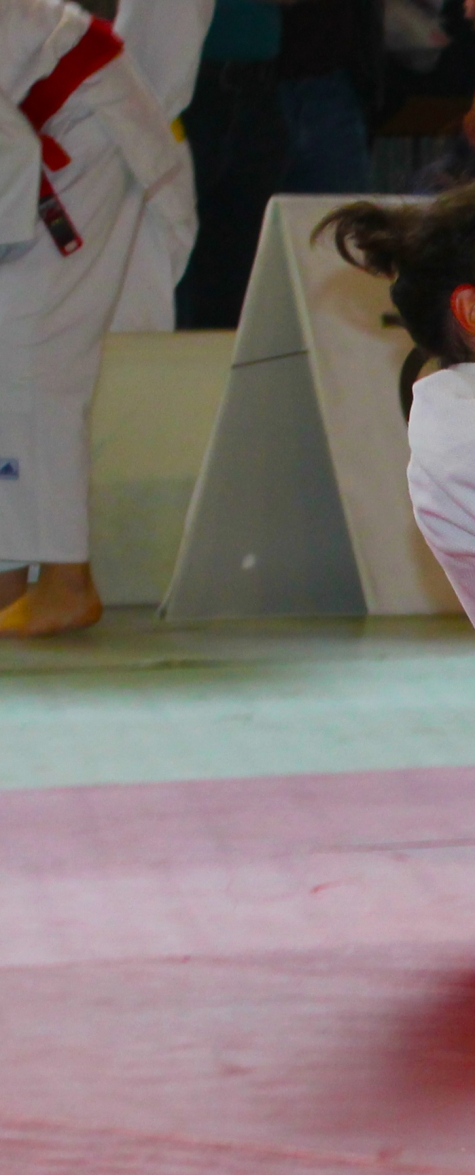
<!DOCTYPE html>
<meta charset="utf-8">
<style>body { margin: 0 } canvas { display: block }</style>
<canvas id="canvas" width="475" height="1175"></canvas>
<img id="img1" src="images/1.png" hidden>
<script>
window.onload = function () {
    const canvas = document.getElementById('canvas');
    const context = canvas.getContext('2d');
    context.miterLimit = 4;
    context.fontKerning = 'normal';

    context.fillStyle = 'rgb(255, 255, 255)';
    context.fillRect(0, 0, 475, 1175);
    context.drawImage(document.getElementById('img1'), 0, 0, 475, 1175);
};
</script>
